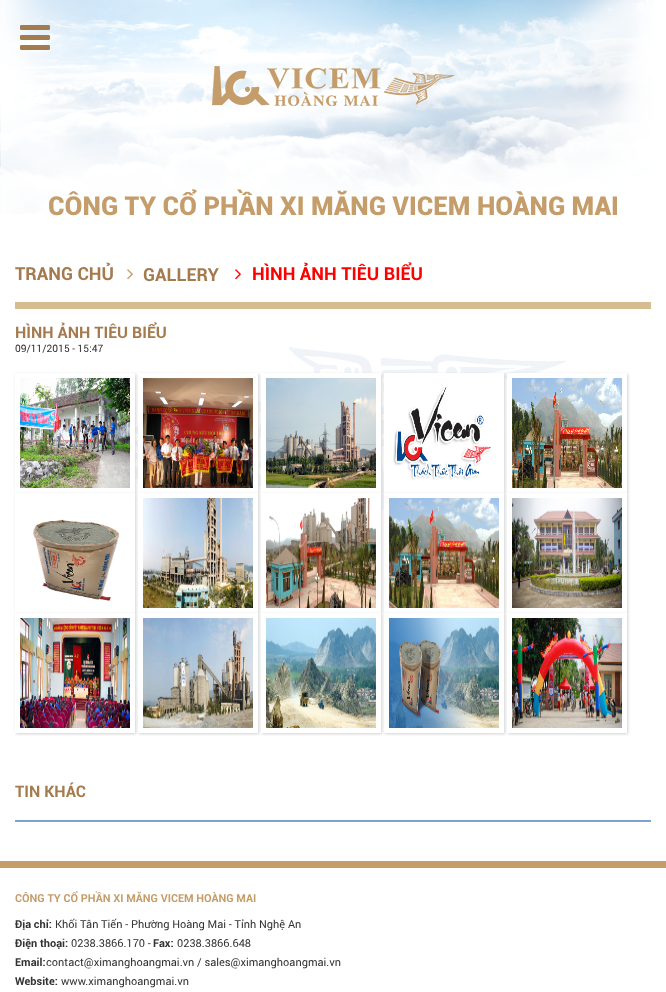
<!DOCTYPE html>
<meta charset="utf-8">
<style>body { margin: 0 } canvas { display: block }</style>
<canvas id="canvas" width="666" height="992"></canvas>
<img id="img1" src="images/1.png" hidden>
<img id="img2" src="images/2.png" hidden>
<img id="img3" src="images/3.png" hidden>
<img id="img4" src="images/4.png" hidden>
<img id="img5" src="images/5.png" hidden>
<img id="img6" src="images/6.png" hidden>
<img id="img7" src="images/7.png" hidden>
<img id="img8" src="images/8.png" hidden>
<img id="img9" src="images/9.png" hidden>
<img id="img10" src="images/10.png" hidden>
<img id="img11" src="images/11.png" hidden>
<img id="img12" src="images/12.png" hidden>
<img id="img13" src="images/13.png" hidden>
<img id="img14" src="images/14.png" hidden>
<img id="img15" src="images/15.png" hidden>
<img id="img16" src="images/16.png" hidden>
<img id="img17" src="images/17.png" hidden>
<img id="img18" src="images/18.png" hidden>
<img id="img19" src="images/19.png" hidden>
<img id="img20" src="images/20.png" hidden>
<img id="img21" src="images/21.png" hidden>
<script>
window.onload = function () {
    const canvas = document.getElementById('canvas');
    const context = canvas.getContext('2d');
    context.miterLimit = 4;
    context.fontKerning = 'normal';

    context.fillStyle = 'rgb(255, 255, 255)';
    context.fillRect(0, 0, 666, 992);
    context.drawImage(document.getElementById('img1'), 0, 0, 654, 214);
    context.drawImage(document.getElementById('img2'), 20, 25, 30, 25);
    context.drawImage(document.getElementById('img3'), 212, 66, 243, 40);
    context.drawImage(document.getElementById('img4'), 135, 347, 431, 165);
    context.drawImage(document.getElementById('img5'), 127, 269, 6, 11);
    context.drawImage(document.getElementById('img6'), 235, 269, 6, 11);
    context.fillStyle = 'rgb(215, 187, 145)';
    context.fillRect(15, 302, 636, 7);
    context.fillStyle = 'rgb(209, 209, 209)';
    context.filter = 'blur(1.5px)';
    context.beginPath();
    context.rect(16, 374, 120, 120);
    context.fill();
    context.filter = 'none';
    context.fillStyle = 'rgb(255, 255, 255)';
    context.fillRect(15, 373, 120, 120);
    context.drawImage(document.getElementById('img7'), 20, 378, 110, 110);
    context.fillStyle = 'rgb(209, 209, 209)';
    context.filter = 'blur(1.5px)';
    context.beginPath();
    context.rect(139, 374, 120, 120);
    context.fill();
    context.filter = 'none';
    context.fillStyle = 'rgb(255, 255, 255)';
    context.fillRect(138, 373, 120, 120);
    context.drawImage(document.getElementById('img8'), 143, 378, 110, 110);
    context.fillStyle = 'rgb(209, 209, 209)';
    context.filter = 'blur(1.5px)';
    context.beginPath();
    context.rect(262, 374, 120, 120);
    context.fill();
    context.filter = 'none';
    context.fillStyle = 'rgb(255, 255, 255)';
    context.fillRect(261, 373, 120, 120);
    context.drawImage(document.getElementById('img9'), 266, 378, 110, 110);
    context.fillStyle = 'rgb(209, 209, 209)';
    context.filter = 'blur(1.5px)';
    context.beginPath();
    context.rect(385, 374, 120, 120);
    context.fill();
    context.filter = 'none';
    context.fillStyle = 'rgb(255, 255, 255)';
    context.fillRect(384, 373, 120, 120);
    context.drawImage(document.getElementById('img10'), 393, 386, 98, 94);
    context.fillStyle = 'rgb(209, 209, 209)';
    context.filter = 'blur(1.5px)';
    context.beginPath();
    context.rect(508, 374, 120, 120);
    context.fill();
    context.filter = 'none';
    context.fillStyle = 'rgb(255, 255, 255)';
    context.fillRect(507, 373, 120, 120);
    context.drawImage(document.getElementById('img11'), 512, 378, 110, 110);
    context.fillStyle = 'rgb(209, 209, 209)';
    context.filter = 'blur(1.5px)';
    context.beginPath();
    context.rect(16, 494, 120, 120);
    context.fill();
    context.filter = 'none';
    context.fillStyle = 'rgb(255, 255, 255)';
    context.fillRect(15, 493, 120, 120);
    context.drawImage(document.getElementById('img12'), 33, 519, 87, 82);
    context.fillStyle = 'rgb(209, 209, 209)';
    context.filter = 'blur(1.5px)';
    context.beginPath();
    context.rect(139, 494, 120, 120);
    context.fill();
    context.filter = 'none';
    context.fillStyle = 'rgb(255, 255, 255)';
    context.fillRect(138, 493, 120, 120);
    context.drawImage(document.getElementById('img13'), 143, 498, 110, 110);
    context.fillStyle = 'rgb(209, 209, 209)';
    context.filter = 'blur(1.5px)';
    context.beginPath();
    context.rect(262, 494, 120, 120);
    context.fill();
    context.filter = 'none';
    context.fillStyle = 'rgb(255, 255, 255)';
    context.fillRect(261, 493, 120, 120);
    context.drawImage(document.getElementById('img14'), 266, 498, 110, 110);
    context.fillStyle = 'rgb(209, 209, 209)';
    context.filter = 'blur(1.5px)';
    context.beginPath();
    context.rect(385, 494, 120, 120);
    context.fill();
    context.filter = 'none';
    context.fillStyle = 'rgb(255, 255, 255)';
    context.fillRect(384, 493, 120, 120);
    context.drawImage(document.getElementById('img15'), 389, 498, 110, 110);
    context.fillStyle = 'rgb(209, 209, 209)';
    context.filter = 'blur(1.5px)';
    context.beginPath();
    context.rect(508, 494, 120, 120);
    context.fill();
    context.filter = 'none';
    context.fillStyle = 'rgb(255, 255, 255)';
    context.fillRect(507, 493, 120, 120);
    context.drawImage(document.getElementById('img16'), 512, 498, 110, 110);
    context.fillStyle = 'rgb(209, 209, 209)';
    context.filter = 'blur(1.5px)';
    context.beginPath();
    context.rect(16, 614, 120, 120);
    context.fill();
    context.filter = 'none';
    context.fillStyle = 'rgb(255, 255, 255)';
    context.fillRect(15, 613, 120, 120);
    context.drawImage(document.getElementById('img17'), 20, 618, 110, 110);
    context.fillStyle = 'rgb(209, 209, 209)';
    context.filter = 'blur(1.5px)';
    context.beginPath();
    context.rect(139, 614, 120, 120);
    context.fill();
    context.filter = 'none';
    context.fillStyle = 'rgb(255, 255, 255)';
    context.fillRect(138, 613, 120, 120);
    context.drawImage(document.getElementById('img18'), 143, 618, 110, 110);
    context.fillStyle = 'rgb(209, 209, 209)';
    context.filter = 'blur(1.5px)';
    context.beginPath();
    context.rect(262, 614, 120, 120);
    context.fill();
    context.filter = 'none';
    context.fillStyle = 'rgb(255, 255, 255)';
    context.fillRect(261, 613, 120, 120);
    context.drawImage(document.getElementById('img19'), 266, 618, 110, 110);
    context.fillStyle = 'rgb(209, 209, 209)';
    context.filter = 'blur(1.5px)';
    context.beginPath();
    context.rect(385, 614, 120, 120);
    context.fill();
    context.filter = 'none';
    context.fillStyle = 'rgb(255, 255, 255)';
    context.fillRect(384, 613, 120, 120);
    context.drawImage(document.getElementById('img20'), 389, 618, 110, 110);
    context.fillStyle = 'rgb(209, 209, 209)';
    context.filter = 'blur(1.5px)';
    context.beginPath();
    context.rect(508, 614, 120, 120);
    context.fill();
    context.filter = 'none';
    context.fillStyle = 'rgb(255, 255, 255)';
    context.fillRect(507, 613, 120, 120);
    context.drawImage(document.getElementById('img21'), 512, 618, 110, 110);
    context.fillStyle = 'rgb(122, 164, 204)';
    context.fillRect(15, 820, 636, 2);
    context.fillStyle = 'rgb(196, 157, 107)';
    context.fillRect(0, 861, 666, 7);
    context.font = '900 26px Roboto';
    context.fillText('CÔNG TY CỔ PHẦN XI MĂNG VICEM HOÀNG MAI', 48, 215);
    context.font = 'bold 18px Roboto';
    context.fillStyle = 'rgb(164, 123, 78)';
    context.fillText('TRANG CHỦ', 15, 280);
    context.fillText('GALLERY', 143, 281);
    context.fillStyle = 'rgb(255, 0, 0)';
    context.fillText('HÌNH ẢNH TIÊU BIỂU', 252, 280);
    context.font = 'bold 16px Roboto';
    context.fillStyle = 'rgb(164, 123, 78)';
    context.fillText('HÌNH ẢNH TIÊU BIỂU', 15, 338);
    context.font = '10.25px Roboto';
    context.fillStyle = 'rgb(51, 51, 51)';
    context.fillText('09/11/2015 - 15:47', 15, 352);
    context.font = 'bold 16px Roboto';
    context.fillStyle = 'rgb(164, 123, 78)';
    context.fillText('TIN KHÁC', 15, 797);
    context.font = 'bold 11px Roboto';
    context.fillStyle = 'rgb(196, 157, 107)';
    context.fillText('CÔNG TY CỔ PHẦN XI MĂNG VICEM HOÀNG MAI', 15, 902);
    context.fillStyle = 'rgb(51, 51, 51)';
    context.fillText('Địa chỉ:', 15, 928);
    context.font = '11px Roboto';
    context.fillText('Khối Tân Tiến - Phường Hoàng Mai - Tỉnh Nghệ An', 55, 928);
    context.font = 'bold 11px Roboto';
    context.fillText('Điện thoại:', 15, 947);
    context.font = '11px Roboto';
    context.fillText('0238.3866.170 -', 71, 947);
    context.font = 'bold 11px Roboto';
    context.fillText('Fax:', 153, 947);
    context.font = '11px Roboto';
    context.fillText('0238.3866.648', 177, 947);
    context.font = 'bold 11px Roboto';
    context.fillText('Email:', 15, 966);
    context.font = '11px Roboto';
    context.fillText('contact@ximanghoangmai.vn / sales@ximanghoangmai.vn', 46, 966);
    context.font = 'bold 11px Roboto';
    context.fillText('Website:', 15, 985);
    context.font = '11px Roboto';
    context.fillText('www.ximanghoangmai.vn', 61, 985);
};
</script>
